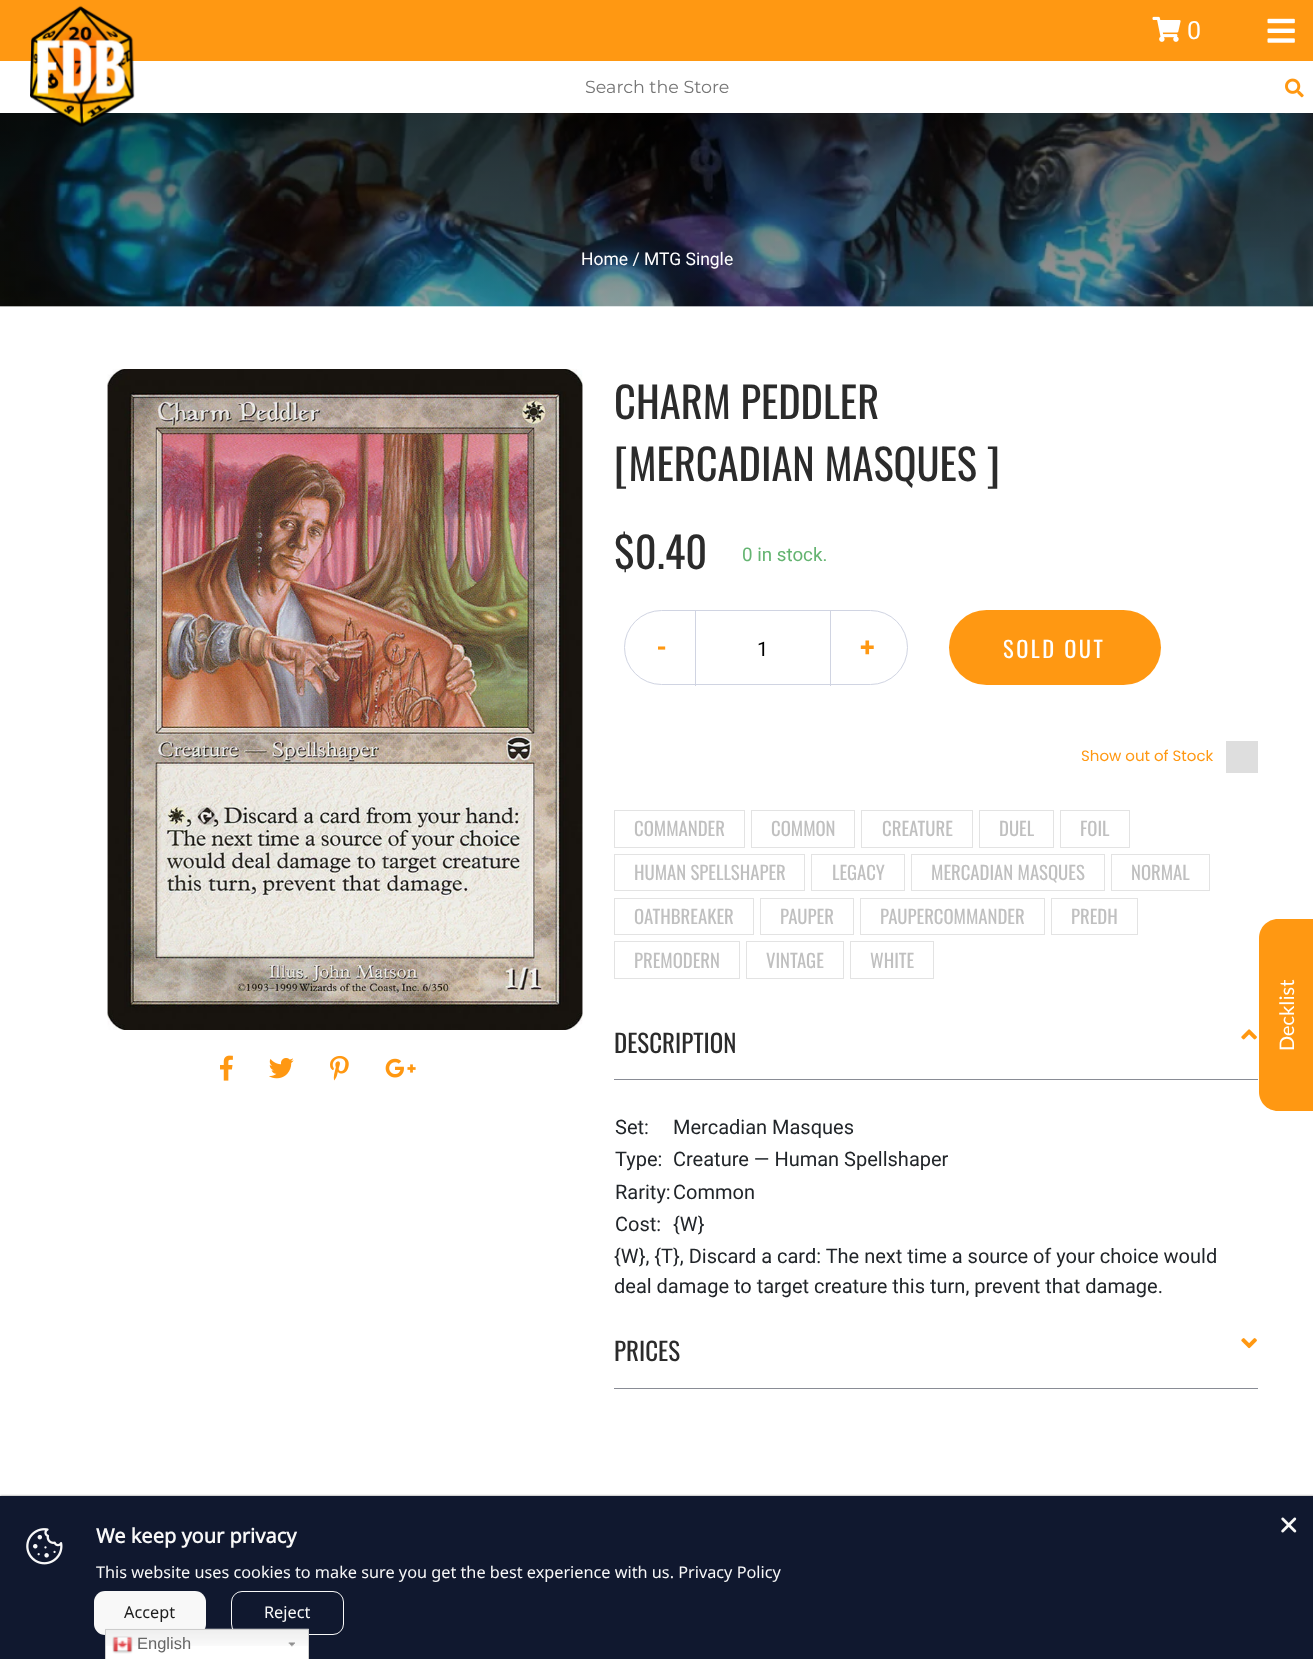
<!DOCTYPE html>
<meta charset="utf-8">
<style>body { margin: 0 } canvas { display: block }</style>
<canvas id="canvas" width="1313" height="1659"></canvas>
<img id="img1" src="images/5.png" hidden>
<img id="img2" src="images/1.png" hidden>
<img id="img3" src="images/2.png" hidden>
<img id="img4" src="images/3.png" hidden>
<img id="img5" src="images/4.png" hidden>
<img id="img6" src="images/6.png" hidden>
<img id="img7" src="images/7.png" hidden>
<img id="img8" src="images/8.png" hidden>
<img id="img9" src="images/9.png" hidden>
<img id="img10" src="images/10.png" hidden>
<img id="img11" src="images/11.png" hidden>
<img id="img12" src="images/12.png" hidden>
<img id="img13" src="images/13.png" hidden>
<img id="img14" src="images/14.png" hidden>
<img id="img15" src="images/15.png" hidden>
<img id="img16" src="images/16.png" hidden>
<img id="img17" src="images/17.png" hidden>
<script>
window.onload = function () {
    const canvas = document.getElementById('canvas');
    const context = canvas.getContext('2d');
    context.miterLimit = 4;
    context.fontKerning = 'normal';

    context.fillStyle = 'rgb(255, 255, 255)';
    context.fillRect(0, 0, 1313, 1659);
    context.fillStyle = 'rgb(255, 152, 18)';
    context.fillRect(0, 0, 1313, 61);
    context.drawImage(document.getElementById('img1'), 0, 113, 1313, 194);
    context.drawImage(document.getElementById('img2'), 30, 5, 105, 122);
    context.drawImage(document.getElementById('img3'), 1267, 18, 28, 25);
    context.drawImage(document.getElementById('img4'), 1152, 16, 29, 26);
    context.drawImage(document.getElementById('img5'), 1285, 78, 19, 20);
    context.drawImage(document.getElementById('img6'), 107, 369, 476, 661);
    context.drawImage(document.getElementById('img7'), 220, 1055, 13, 26);
    context.drawImage(document.getElementById('img8'), 269, 1058, 25, 21);
    context.drawImage(document.getElementById('img9'), 330, 1055, 19, 26);
    context.drawImage(document.getElementById('img10'), 385, 1058, 31, 20);
    context.beginPath();
    context.roundRect(624.5, 610.5, 283, 74, 37);
    context.strokeStyle = 'rgb(208, 212, 226)';
    context.stroke();
    context.fillStyle = 'rgb(208, 212, 226)';
    context.fillRect(830, 611, 1, 75);
    context.fillRect(695, 611, 1, 75);
    context.fillStyle = 'rgb(255, 152, 18)';
    context.beginPath();
    context.roundRect(949, 610, 212, 75, 37.5);
    context.fill();
    context.fillStyle = 'rgb(222, 222, 222)';
    context.fillRect(1226, 741, 32, 32);
    context.strokeStyle = 'rgb(227, 227, 227)';
    context.strokeRect(614.5, 810.5, 130, 37);
    context.strokeRect(751.5, 810.5, 103, 37);
    context.strokeRect(861.5, 810.5, 111, 37);
    context.strokeRect(979.5, 810.5, 74, 37);
    context.strokeRect(1060.5, 810.5, 69, 37);
    context.strokeRect(614.5, 854.5, 190, 36);
    context.strokeRect(811.5, 854.5, 93, 36);
    context.strokeRect(911.5, 854.5, 193, 36);
    context.strokeRect(1111.5, 854.5, 98, 36);
    context.strokeRect(614.5, 898.5, 139, 36);
    context.strokeRect(760.5, 898.5, 93, 36);
    context.strokeRect(860.5, 898.5, 184, 36);
    context.strokeRect(1051.5, 898.5, 86, 36);
    context.strokeRect(614.5, 941.5, 125, 37);
    context.strokeRect(746.5, 941.5, 97, 37);
    context.strokeRect(850.5, 941.5, 83, 37);
    context.fillStyle = 'rgb(137, 140, 149)';
    context.fillRect(614, 1079, 644, 1);
    context.drawImage(document.getElementById('img11'), 1241, 1029, 16, 11);
    context.fillRect(614, 1388, 644, 1);
    context.drawImage(document.getElementById('img12'), 1241, 1338, 16, 11);
    context.fillStyle = 'rgb(255, 152, 18)';
    context.beginPath();
    context.moveTo(1259, 1092);
    context.lineTo(1259, 938);
    context.bezierCurveTo(1259, 928, 1267, 919, 1278, 919);
    context.lineTo(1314, 919);
    context.lineTo(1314, 1111);
    context.lineTo(1278, 1111);
    context.bezierCurveTo(1267, 1111, 1259, 1102, 1259, 1092);
    context.closePath();
    context.fill();
    context.fillStyle = 'rgba(0, 0, 0, 0.5)';
    context.filter = 'blur(1px)';
    context.beginPath();
    context.rect(0, 1496, 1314, 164);
    context.fill();
    context.filter = 'none';
    context.fillStyle = 'rgb(16, 24, 47)';
    context.fillRect(0, 1496, 1313, 163);
    context.drawImage(document.getElementById('img13'), 1281, 1517, 16, 16);
    context.drawImage(document.getElementById('img14'), 26, 1528, 37, 37);
    context.fillStyle = 'rgb(248, 248, 248)';
    context.beginPath();
    context.roundRect(94, 1591, 112, 44, 11);
    context.fill();
    context.beginPath();
    context.roundRect(231.5, 1591.5, 112, 43, 10.5);
    context.strokeStyle = 'rgb(248, 248, 248)';
    context.stroke();
    context.fillStyle = 'rgb(255, 255, 255)';
    context.fillRect(106, 1646, 202, 13);
    context.drawImage(document.getElementById('img15'), 105, 1628, 204, 18);
    context.drawImage(document.getElementById('img16'), 288, 1642, 7, 5);
    context.strokeStyle = 'rgb(204, 204, 204)';
    context.strokeRect(105.5, 1629.5, 203, 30);
    context.drawImage(document.getElementById('img17'), 112, 1636, 21, 18);
    context.font = '25px Roboto';
    context.fillText('0', 1187, 39);
    context.font = '100 17.5px Montserrat';
    context.fillStyle = 'rgb(117, 117, 117)';
    context.fillText('Search the Store', 585, 93);
    context.font = '17.5px Roboto';
    context.fillStyle = 'rgb(255, 255, 255)';
    context.fillText('Home / MTG Single', 581, 265);
    context.font = '42.5px Oswald';
    context.fillStyle = 'rgb(43, 43, 43)';
    context.fillText('CHARM PEDDLER', 614, 419);
    context.fillText('[MERCADIAN MASQUES ]', 614, 481);
    context.fillText('$0.40', 614, 569);
    context.font = '18.75px Roboto';
    context.fillStyle = 'rgb(100, 180, 113)';
    context.fillText('0 in stock.', 742, 561);
    context.font = 'bold 25px Roboto';
    context.fillStyle = 'rgb(255, 152, 18)';
    context.fillText('-', 657, 656);
    context.font = '20px Roboto';
    context.fillStyle = 'rgb(0, 0, 0)';
    context.fillText('1', 757, 656);
    context.font = 'bold 25px Roboto';
    context.fillStyle = 'rgb(255, 152, 18)';
    context.fillText('+', 860, 656);
    context.letterSpacing = '2.5px';
    context.font = '22.5px Oswald';
    context.fillStyle = 'rgb(255, 255, 255)';
    context.fillText('SOLD OUT', 1003, 658);
    context.letterSpacing = '0px';
    context.font = '15px Poppins';
    context.fillStyle = 'rgb(255, 152, 18)';
    context.fillText('Show out of Stock', 1081, 761);
    context.font = '18.75px Oswald';
    context.fillStyle = 'rgb(192, 192, 192)';
    context.fillText('COMMANDER', 634, 836);
    context.fillText('COMMON', 771, 836);
    context.fillText('CREATURE', 882, 836);
    context.fillText('DUEL', 999, 836);
    context.fillText('FOIL', 1080, 836);
    context.fillText('HUMAN SPELLSHAPER', 634, 880);
    context.fillText('LEGACY', 832, 880);
    context.fillText('MERCADIAN MASQUES', 931, 880);
    context.fillText('NORMAL', 1131, 880);
    context.fillText('OATHBREAKER', 634, 924);
    context.fillText('PAUPER', 780, 924);
    context.fillText('PAUPERCOMMANDER', 880, 924);
    context.fillText('PREDH', 1071, 924);
    context.fillText('PREMODERN', 634, 968);
    context.fillText('VINTAGE', 766, 968);
    context.fillText('WHITE', 870, 968);
    context.font = '25px Oswald';
    context.fillStyle = 'rgb(43, 43, 43)';
    context.fillText('DESCRIPTION', 614, 1053);
    context.font = '20px Roboto';
    context.fillStyle = 'rgb(33, 37, 41)';
    context.fillText('Set:', 615, 1134);
    context.fillText('Mercadian Masques', 673, 1134);
    context.fillText('Type:', 615, 1166);
    context.fillText('Creature — Human Spellshaper', 673, 1166);
    context.fillText('Rarity:', 615, 1199);
    context.fillText('Common', 673, 1199);
    context.fillText('Cost:', 615, 1231);
    context.fillText('{W}', 673, 1231);
    context.fillText('{W}, {T}, Discard a card: The next time a source of your choice would', 614, 1263);
    context.fillText('deal damage to target creature this turn, prevent that damage.', 614, 1293);
    context.font = '25px Oswald';
    context.fillStyle = 'rgb(43, 43, 43)';
    context.fillText('PRICES', 614, 1361);
    context.font = '20px Lato';
    context.fillStyle = 'rgb(255, 255, 255)';
    context.save();
    context.translate(1294, 1051);
    context.rotate(-90 * Math.PI / 180);
    context.fillText('Decklist', 0, 0);
    context.restore();
    context.font = 'bold 20px Noto Sans';
    context.fillStyle = 'rgb(248, 248, 248)';
    context.fillText('We keep your privacy', 96, 1543);
    context.font = '16.25px Noto Sans';
    context.fillText('This website uses cookies to make sure you get the best experience with us. Privacy Policy', 96, 1578);
    context.fillStyle = 'rgb(29, 29, 29)';
    context.fillText('Accept', 124, 1618);
    context.fillStyle = 'rgb(248, 248, 248)';
    context.fillText('Reject', 264, 1618);
    context.font = '16.5px Liberation Sans';
    context.fillStyle = 'rgb(102, 102, 102)';
    context.fillText('English', 137, 1649);
};
</script>
